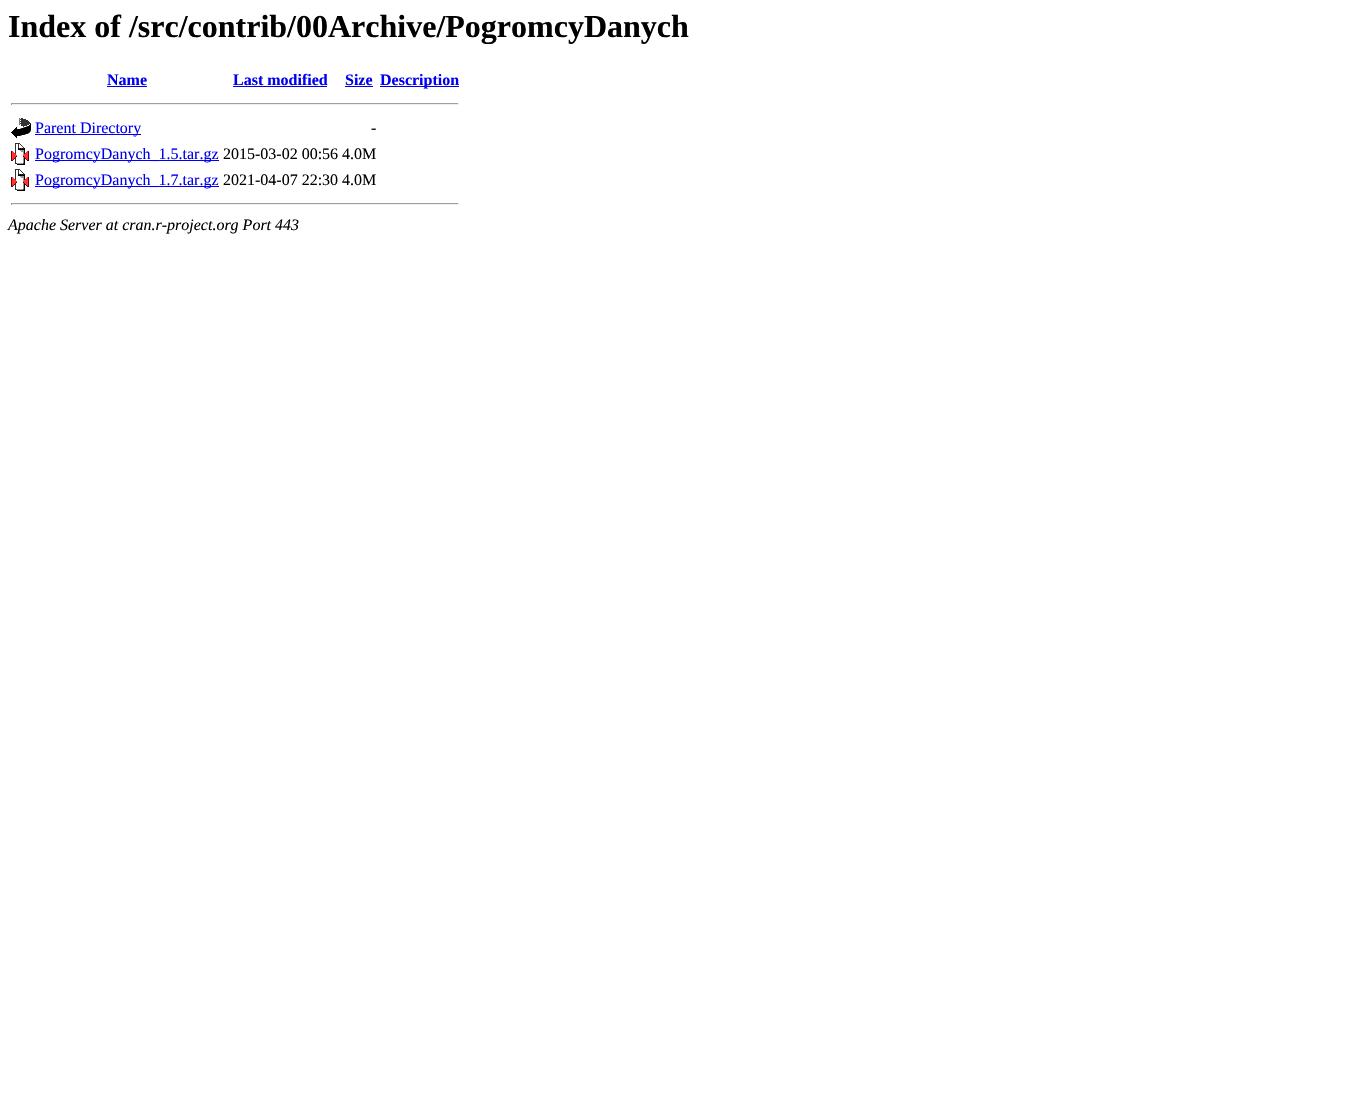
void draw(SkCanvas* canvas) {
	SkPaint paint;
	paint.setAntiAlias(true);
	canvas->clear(0xffffffff);
	SkFont f1(fontMgr->matchFamilyStyle("Liberation Serif", SkFontStyle::Bold()), 32);
	f1.setSubpixel(true);
	paint.setColor(0xff000000);
	canvas->drawString("Index of /src/contrib/00Archive/PogromcyDanych", 8, 37, f1, paint);
	SkFont f2(fontMgr->matchFamilyStyle("Liberation Serif", SkFontStyle::Bold()), 16);
	f2.setSubpixel(true);
	paint.setColor(0xff0000ee);
	canvas->drawString("Name", 107, 85, f2, paint);
	canvas->drawRect(SkRect::MakeXYWH(107, 86, 40, 1), paint);
	canvas->drawString("Last modified", 233, 85, f2, paint);
	canvas->drawRect(SkRect::MakeXYWH(233, 86, 94, 1), paint);
	canvas->drawString("Size", 345, 85, f2, paint);
	canvas->drawRect(SkRect::MakeXYWH(345, 86, 28, 1), paint);
	canvas->drawRect(SkRect::MakeXYWH(380, 86, 79, 1), paint);
	canvas->drawString("Description", 380, 85, f2, paint);
	paint.setColor(0xff9f9f9f);
	canvas->drawRect(SkRect::MakeXYWH(11, 103, 448, 1), paint);
	paint.setColor(0xffeeeeee);
	canvas->drawRect(SkRect::MakeXYWH(458, 103, 1, 2), paint);
	canvas->drawRect(SkRect::MakeXYWH(11, 104, 448, 1), paint);
	paint.setColor(0xff9f9f9f);
	canvas->drawRect(SkRect::MakeXYWH(11, 103, 1, 2), paint);
	canvas->drawImageRect(SkImages::DeferredFromEncodedData(SkData::MakeFromFileName("img1.png")), SkRect::MakeXYWH(11, 118, 20, 20), SkSamplingOptions());
	paint.setColor(0xff0000ee);
	canvas->drawRect(SkRect::MakeXYWH(35, 134, 106, 1), paint);
	SkFont f3(fontMgr->matchFamilyStyle("Liberation Serif", SkFontStyle::Normal()), 16);
	f3.setSubpixel(true);
	canvas->drawString("Parent Directory", 35, 133, f3, paint);
	paint.setColor(0xff000000);
	canvas->drawString("-", 371, 133, f3, paint);
	canvas->drawImageRect(SkImages::DeferredFromEncodedData(SkData::MakeFromFileName("img2.png")), SkRect::MakeXYWH(11, 143, 18, 22), SkSamplingOptions());
	paint.setColor(0xff0000ee);
	canvas->drawRect(SkRect::MakeXYWH(35, 160, 184, 1), paint);
	canvas->drawString("PogromcyDanych_1.5.tar.gz", 35, 159, f3, paint);
	paint.setColor(0xff000000);
	canvas->drawString("2015-03-02 00:56 4.0M", 223, 159, f3, paint);
	canvas->drawImageRect(SkImages::DeferredFromEncodedData(SkData::MakeFromFileName("img2.png")), SkRect::MakeXYWH(11, 169, 18, 22), SkSamplingOptions());
	paint.setColor(0xff0000ee);
	canvas->drawRect(SkRect::MakeXYWH(35, 186, 184, 1), paint);
	canvas->drawString("PogromcyDanych_1.7.tar.gz", 35, 185, f3, paint);
	paint.setColor(0xff000000);
	canvas->drawString("2021-04-07 22:30 4.0M", 223, 185, f3, paint);
	paint.setColor(0xff9f9f9f);
	canvas->drawRect(SkRect::MakeXYWH(11, 203, 448, 1), paint);
	paint.setColor(0xffeeeeee);
	canvas->drawRect(SkRect::MakeXYWH(458, 203, 1, 2), paint);
	canvas->drawRect(SkRect::MakeXYWH(11, 204, 448, 1), paint);
	paint.setColor(0xff9f9f9f);
	canvas->drawRect(SkRect::MakeXYWH(11, 203, 1, 2), paint);
	SkFont f4(fontMgr->matchFamilyStyle("Liberation Serif", SkFontStyle::Italic()), 16);
	f4.setSubpixel(true);
	paint.setColor(0xff000000);
	canvas->drawString("Apache Server at cran.r-project.org Port 443", 8, 230, f4, paint);
}
